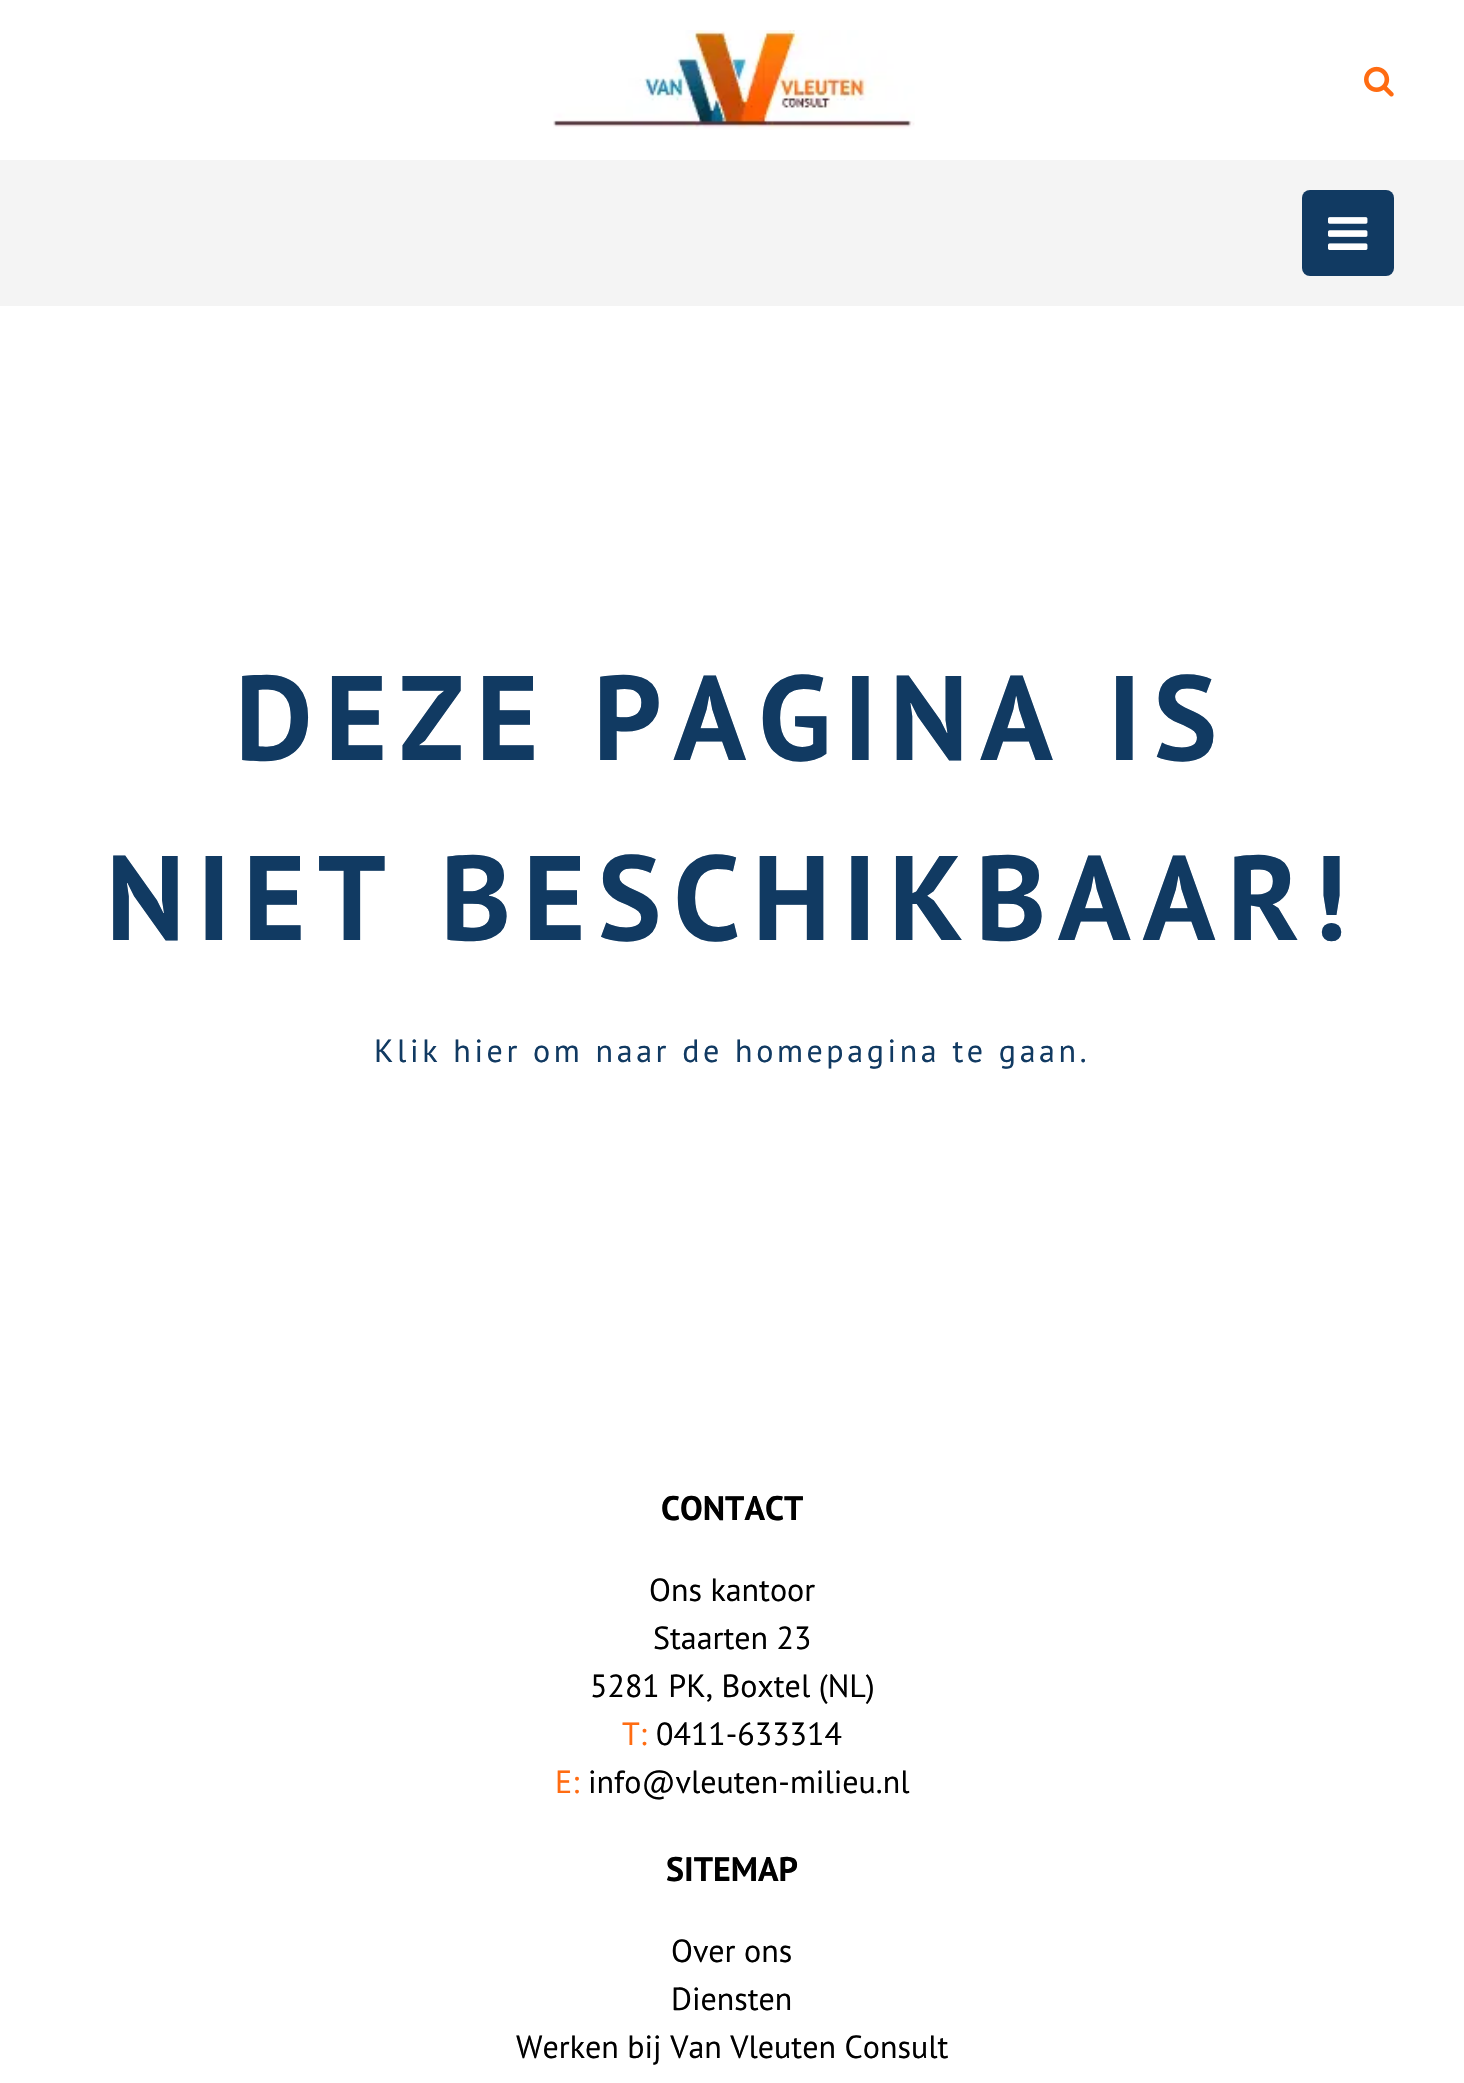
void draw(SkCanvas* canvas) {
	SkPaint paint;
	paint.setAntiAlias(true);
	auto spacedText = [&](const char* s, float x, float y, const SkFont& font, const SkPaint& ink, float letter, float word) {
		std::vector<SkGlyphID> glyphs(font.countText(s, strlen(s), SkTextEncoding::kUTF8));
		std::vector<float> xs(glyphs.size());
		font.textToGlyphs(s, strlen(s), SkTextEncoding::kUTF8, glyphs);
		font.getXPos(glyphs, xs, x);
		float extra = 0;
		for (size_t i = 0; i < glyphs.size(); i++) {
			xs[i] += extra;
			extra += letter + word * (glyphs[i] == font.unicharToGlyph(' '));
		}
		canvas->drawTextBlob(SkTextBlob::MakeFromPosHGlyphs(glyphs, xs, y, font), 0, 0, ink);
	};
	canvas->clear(0xffffffff);
	canvas->drawImageRect(SkImages::DeferredFromEncodedData(SkData::MakeFromFileName("img1.png")), SkRect::MakeXYWH(553, 30, 362, 100), SkSamplingOptions());
	canvas->drawImageRect(SkImages::DeferredFromEncodedData(SkData::MakeFromFileName("img2.png")), SkRect::MakeXYWH(1364, 66, 30, 31), SkSamplingOptions());
	paint.setColor(0xfff4f4f4);
	canvas->drawRect(SkRect::MakeXYWH(0, 160, 1464, 146), paint);
	paint.setColor(0xff113a62);
	canvas->drawRoundRect(SkRect::MakeXYWH(1302, 190, 92, 86), 8, 8, paint);
	canvas->drawImageRect(SkImages::DeferredFromEncodedData(SkData::MakeFromFileName("img3.png")), SkRect::MakeXYWH(1328, 217, 40, 33), SkSamplingOptions());
	SkFont f1(fontMgr->matchFamilyStyle("PT Sans", SkFontStyle::Bold()), 120);
	f1.setSubpixel(true);
	spacedText("DEZE PAGINA IS", 235, 760, f1, paint, 12, 0);
	spacedText("NIET BESCHIKBAAR!", 106, 940, f1, paint, 12, 0);
	SkFont f2(fontMgr->matchFamilyStyle("PT Sans", SkFontStyle::Normal()), 32);
	f2.setSubpixel(true);
	spacedText("Klik hier om naar de homepagina te gaan.", 374, 1062, f2, paint, 3.6, 0);
	SkFont f3(fontMgr->matchFamilyStyle("PT Sans", SkFontStyle::Bold()), 34);
	f3.setSubpixel(true);
	paint.setColor(0xff000000);
	canvas->drawString("CONTACT", 661, 1520, f3, paint);
	canvas->drawString("Ons kantoor", 649, 1601, f2, paint);
	canvas->drawString("Staarten 23", 653, 1649, f2, paint);
	canvas->drawString("5281 PK, Boxtel (NL)", 590, 1697, f2, paint);
	paint.setColor(0xffff6c12);
	canvas->drawString("T:", 622, 1745, f2, paint);
	paint.setColor(0xff000000);
	canvas->drawString("0411-633314", 656, 1745, f2, paint);
	paint.setColor(0xffff6c12);
	canvas->drawString("E:", 555, 1793, f2, paint);
	paint.setColor(0xff000000);
	canvas->drawString("info@vleuten-milieu.nl", 588, 1793, f2, paint);
	canvas->drawString("SITEMAP", 666, 1881, f3, paint);
	canvas->drawString("Over ons", 671, 1962, f2, paint);
	canvas->drawString("Diensten", 671, 2010, f2, paint);
	canvas->drawString("Werken bij Van Vleuten Consult", 516, 2058, f2, paint);
}
